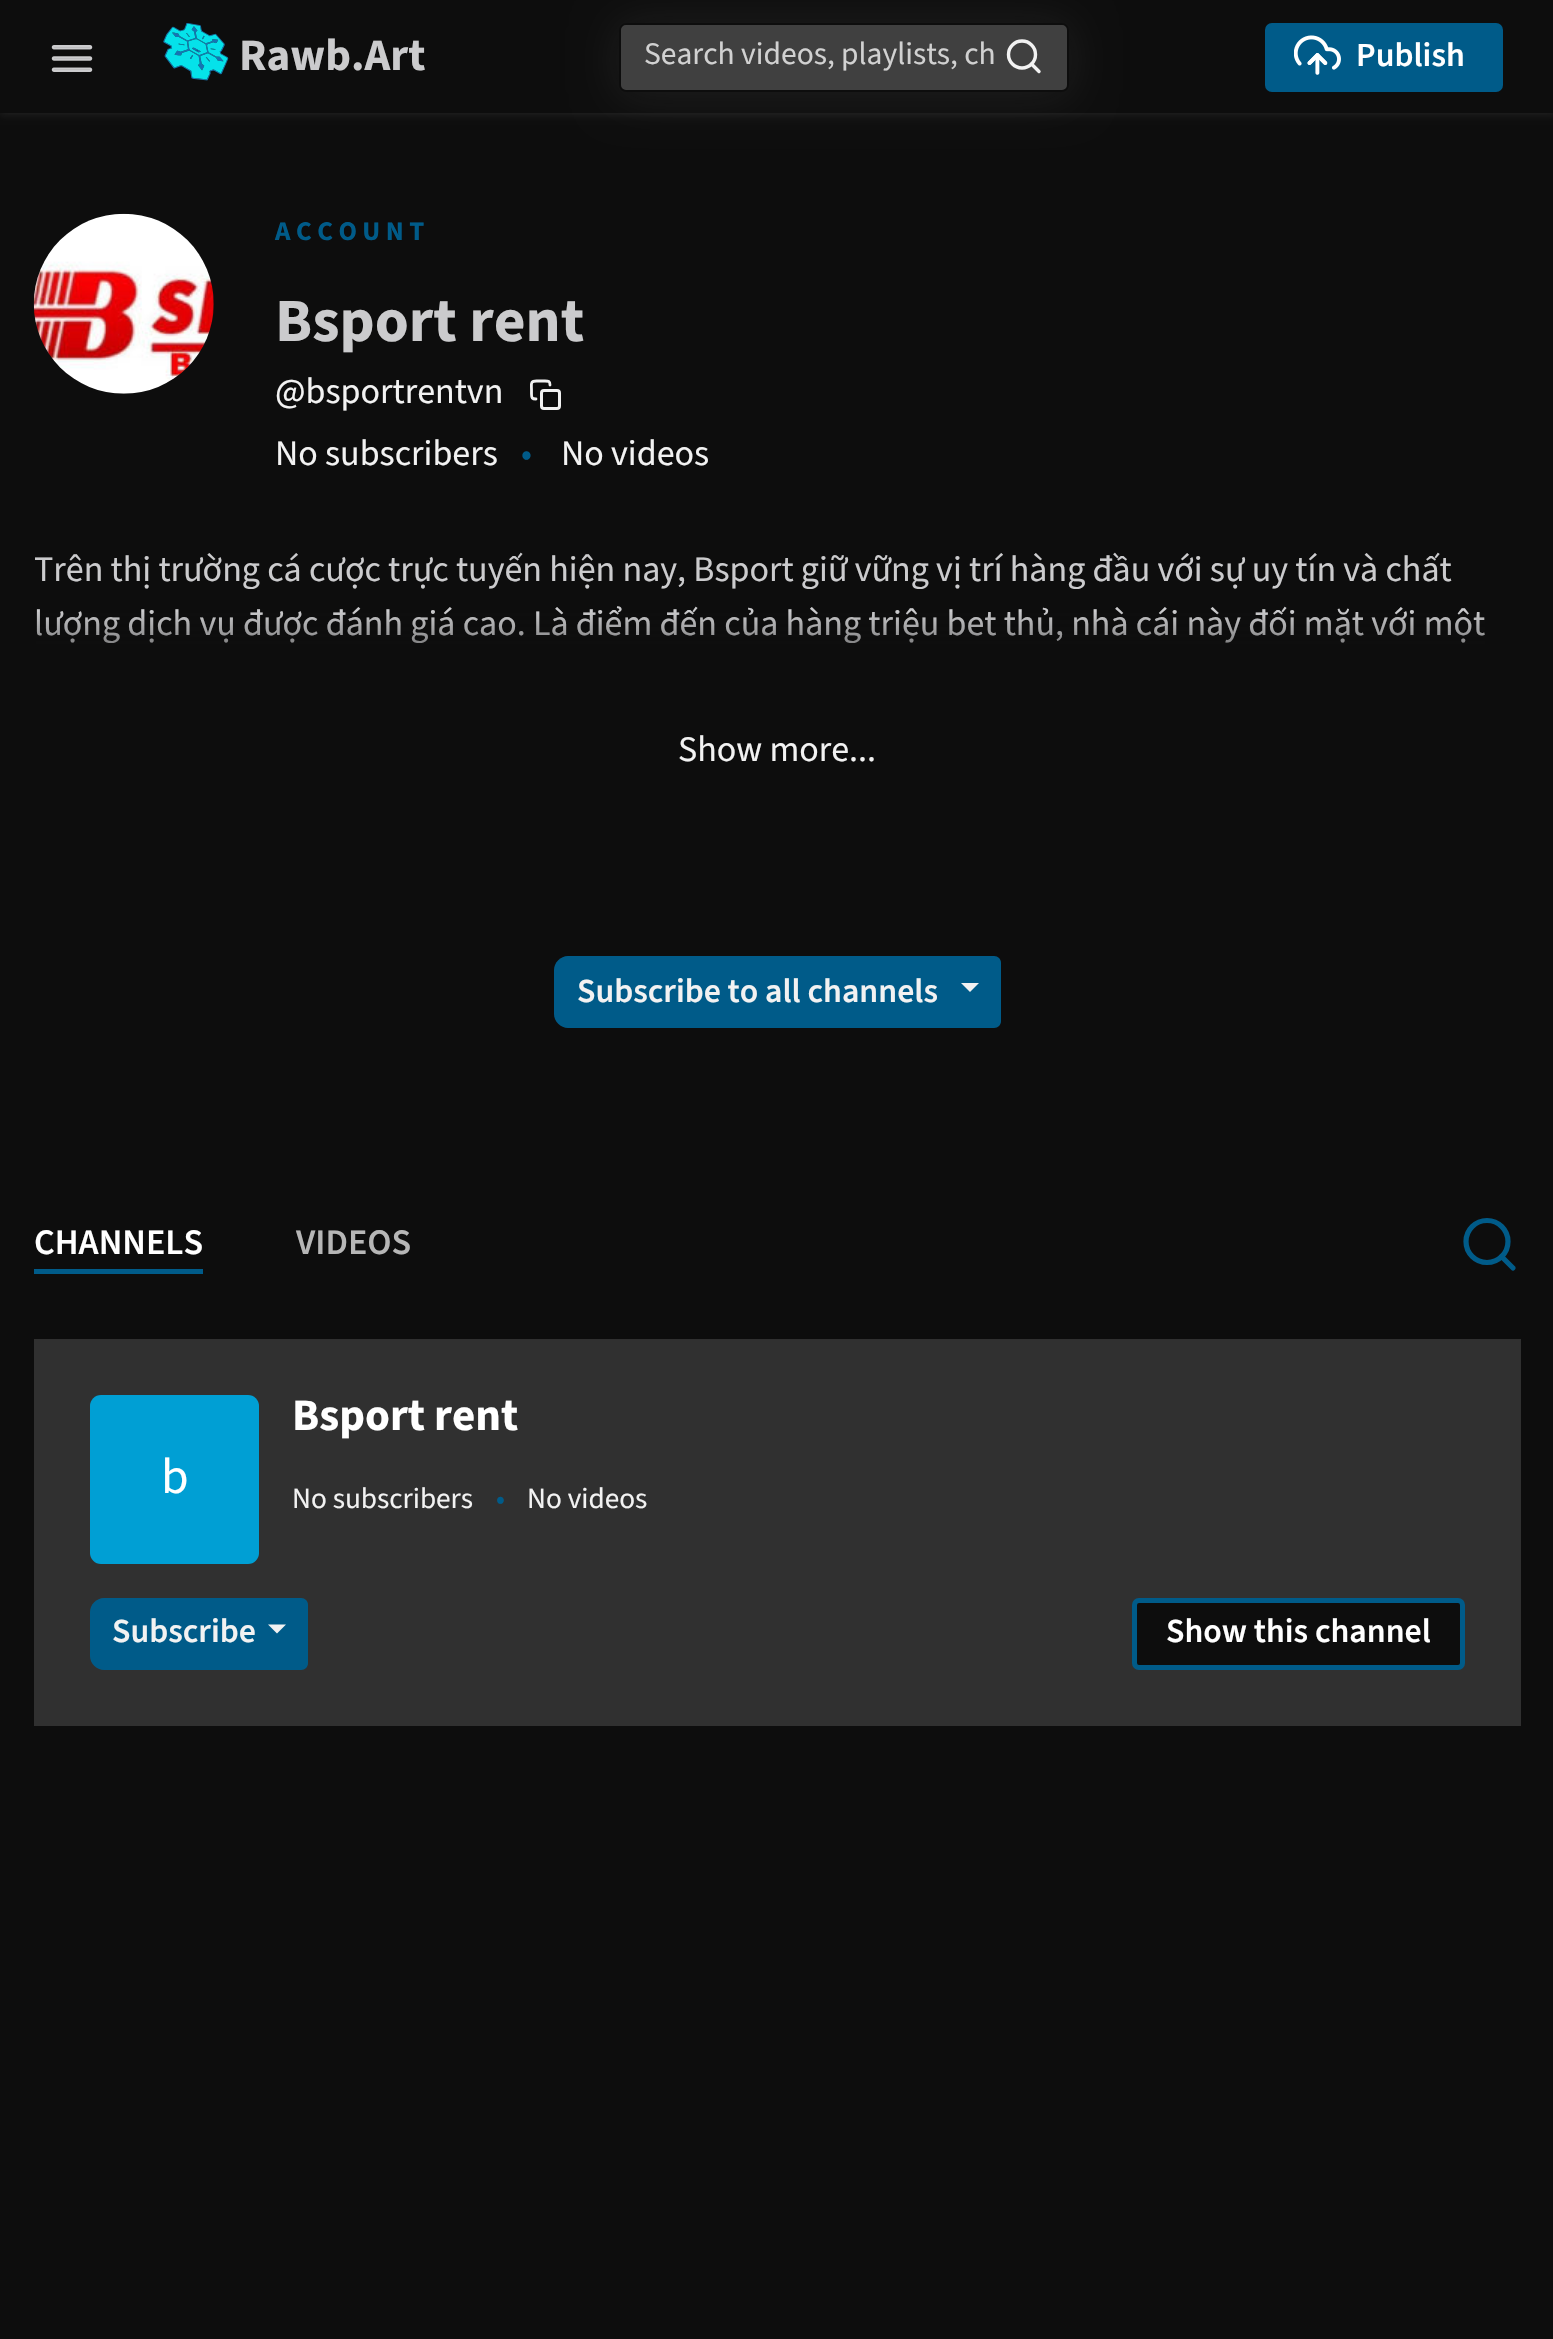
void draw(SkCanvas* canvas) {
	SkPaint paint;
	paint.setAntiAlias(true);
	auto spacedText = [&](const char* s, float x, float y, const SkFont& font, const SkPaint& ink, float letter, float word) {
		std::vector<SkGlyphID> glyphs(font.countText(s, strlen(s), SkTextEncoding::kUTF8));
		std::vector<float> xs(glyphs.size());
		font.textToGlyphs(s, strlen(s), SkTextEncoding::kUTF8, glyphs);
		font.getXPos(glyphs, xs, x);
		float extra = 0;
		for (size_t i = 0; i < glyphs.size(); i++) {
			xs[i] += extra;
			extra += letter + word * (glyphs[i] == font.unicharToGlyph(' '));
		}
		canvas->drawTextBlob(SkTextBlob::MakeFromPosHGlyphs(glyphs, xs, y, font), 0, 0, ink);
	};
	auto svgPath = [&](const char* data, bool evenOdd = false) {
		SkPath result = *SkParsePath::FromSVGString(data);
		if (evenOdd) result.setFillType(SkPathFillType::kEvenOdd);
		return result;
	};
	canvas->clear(0xff0d0d0d);
	paint.setColor(0x1ac8c8c8);
	paint.setMaskFilter(SkMaskFilter::MakeBlur(kNormal_SkBlurStyle, 3.5));
	canvas->drawRect(SkRect::MakeXYWH(0, 2, 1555, 113), paint);
	paint.setMaskFilter(nullptr);
	paint.setColor(0xff0d0d0d);
	canvas->drawRect(SkRect::MakeXYWH(0, 0, 1553, 113), paint);
	canvas->drawImageRect(SkImages::DeferredFromEncodedData(SkData::MakeFromFileName("img1.png")), SkRect::MakeXYWH(51, 45, 42, 27), SkSamplingOptions());
	canvas->drawImageRect(SkImages::DeferredFromEncodedData(SkData::MakeFromFileName("img2.png")), SkRect::MakeXYWH(163, 23, 66, 58), SkSamplingOptions());
	SkFont f1(fontMgr->matchFamilyStyle("Source Sans 3", SkFontStyle::Bold()), 45);
	f1.setSubpixel(true);
	paint.setColor(0xffcbcbcd);
	canvas->drawString("Rawb.Art", 239, 70, f1, paint);
	paint.setColor(0x1ac8c8c8);
	paint.setMaskFilter(SkMaskFilter::MakeBlur(kNormal_SkBlurStyle, 22.5));
	canvas->drawRoundRect(SkRect::MakeXYWH(619, 25, 450, 70), 7, 7, paint);
	paint.setMaskFilter(nullptr);
	paint.setColor(0xff404040);
	canvas->drawRoundRect(SkRect::MakeXYWH(620, 24, 448, 67), 6, 6, paint);
	paint.setStroke(true);
	paint.setStrokeWidth(2);
	paint.setColor(0xff0d0d0d);
	canvas->drawRoundRect(SkRect::MakeXYWH(620, 24, 448, 67), 6, 6, paint);
	SkFont f2(fontMgr->matchFamilyStyle("Source Sans 3", SkFontStyle::Normal()), 31.5);
	f2.setSubpixel(true);
	paint.setStroke(false);
	paint.setColor(0xffd1d1d1);
	canvas->drawString("Search videos, playlists, ch", 644, 64, f2, paint);
	paint.setStroke(true);
	paint.setStrokeWidth(3.4);
	paint.setColor(0xfff2f2f2);
	canvas->drawCircle(1022, 54.5, 13.5, paint);
	paint.setStrokeCap(SkPaint::kRound_Cap);
	paint.setStrokeJoin(SkPaint::kRound_Join);
	canvas->drawPath(svgPath("M1039 71.5L1031.5 64"), paint);
	paint.setStroke(false);
	paint.setColor(0xff005b89);
	canvas->drawRoundRect(SkRect::MakeXYWH(1265, 23, 238, 69), 7, 7, paint);
	canvas->drawImageRect(SkImages::DeferredFromEncodedData(SkData::MakeFromFileName("img3.png")), SkRect::MakeXYWH(1294, 35, 47, 40), SkSamplingOptions());
	SkFont f3(fontMgr->matchFamilyStyle("Source Sans 3", SkFontStyle(600, SkFontStyle::kNormal_Width, SkFontStyle::kUpright_Slant)), 33.75);
	f3.setSubpixel(true);
	paint.setColor(0xffffffff);
	canvas->drawString("Publish", 1356, 66, f3, paint);
	canvas->drawImageRect(SkImages::DeferredFromEncodedData(SkData::MakeFromFileName("img4.png")), SkRect::MakeXYWH(33, 213, 181, 181), SkSamplingOptions());
	SkFont f4(fontMgr->matchFamilyStyle("Source Sans 3", SkFontStyle::Bold()), 27);
	f4.setSubpixel(true);
	paint.setColor(0xff005b89);
	spacedText("ACCOUNT", 275, 240, f4, paint, 5.5, 0);
	SkFont f5(fontMgr->matchFamilyStyle("Source Sans 3", SkFontStyle::Bold()), 61.5);
	f5.setSubpixel(true);
	paint.setColor(0xffcbcbcd);
	canvas->drawString("Bsport rent", 275, 341, f5, paint);
	SkFont f6(fontMgr->matchFamilyStyle("Source Sans 3", SkFontStyle::Normal()), 36);
	f6.setSubpixel(true);
	paint.setColor(0xfff2f2f2);
	canvas->drawString("@bsportrentvn", 275, 403, f6, paint);
	paint.setStroke(true);
	paint.setStrokeWidth(3);
	paint.setStrokeCap(SkPaint::kButt_Cap);
	paint.setStrokeJoin(SkPaint::kMiter_Join);
	canvas->drawRoundRect(SkRect::MakeXYWH(541.5, 390.5, 18, 18), 2.5, 2.5, paint);
	paint.setStrokeWidth(2.8);
	paint.setStrokeCap(SkPaint::kRound_Cap);
	paint.setStrokeJoin(SkPaint::kRound_Join);
	canvas->drawPath(svgPath("M536 399C532 399 531.5 398 531.5 394V390C531.5 384 530 381 536.5 381H545C548.5 381 550 381 550 385"), paint);
	paint.setStroke(false);
	canvas->drawString("No subscribers", 275, 465, f6, paint);
	paint.setColor(0xff005b89);
	canvas->drawString("•", 521, 465, f6, paint);
	paint.setColor(0xfff2f2f2);
	canvas->drawString("No videos", 561, 465, f6, paint);
	paint.setColor(0xffcbcbcd);
	canvas->drawString("Trên thị trường cá cược trực tuyến hiện nay, Bsport giữ vững vị trí hàng đầu với sự uy tín và chất", 34, 581, f6, paint);
	canvas->drawString("lượng dịch vụ được đánh giá cao. Là điểm đến của hàng triệu bet thủ, nhà cái này đối mặt với một", 34, 635, f6, paint);
	{
		const SkColor colors[] = {0x000d0d0d, 0xff0d0d0d};
		const float stops[] = {0.43, 1};
		const SkPoint ends[] = {{777, 542}, {777, 700}};
		paint.setShader(SkGradientShader::MakeLinear(ends, colors, stops, 2, SkTileMode::kClamp));
		paint.setAlpha(255);
	}
	canvas->drawRect(SkRect::MakeXYWH(36, 612, 1449, 32), paint);
	paint.setShader(nullptr);
	paint.setColor(0xfff2f2f2);
	canvas->drawString("Show more...", 678, 761, f6, paint);
	paint.setColor(0xff005b89);
	canvas->drawPath(svgPath("M568 956H994C998 956 1001 959 1001 963V1021C1001 1025 998 1028 994 1028H568C560.5 1028 554 1021.5 554 1014V970C554 962.5 560.5 956 568 956Z"), paint);
	paint.setColor(0xfff2f2f2);
	canvas->drawString("Subscribe to all channels", 577, 1002, f3, paint);
	canvas->drawPath(svgPath("M961 983H979L970 992Z"), paint);
	paint.setColor(0xff005b89);
	canvas->drawRect(SkRect::MakeXYWH(34, 1269, 169, 5), paint);
	SkFont f7(fontMgr->matchFamilyStyle("Source Sans 3", SkFontStyle(600, SkFontStyle::kNormal_Width, SkFontStyle::kUpright_Slant)), 36);
	f7.setSubpixel(true);
	paint.setColor(0xffffffff);
	canvas->drawString("CHANNELS", 34, 1254, f7, paint);
	paint.setColor(0xffb6b6b6);
	canvas->drawString("VIDEOS", 296, 1254, f7, paint);
	paint.setStroke(true);
	paint.setStrokeWidth(5.2);
	paint.setStrokeCap(SkPaint::kButt_Cap);
	paint.setStrokeJoin(SkPaint::kMiter_Join);
	paint.setColor(0xff005b89);
	canvas->drawCircle(1487, 1241.5, 21, paint);
	paint.setStrokeCap(SkPaint::kRound_Cap);
	paint.setStrokeJoin(SkPaint::kRound_Join);
	canvas->drawPath(svgPath("M1513 1268L1501.5 1256.5"), paint);
	paint.setStroke(false);
	paint.setColor(0xff303030);
	canvas->drawRect(SkRect::MakeXYWH(34, 1339, 1487, 387), paint);
	paint.setColor(0xffffffff);
	canvas->drawString("Bsport rent", 292, 1430, f1, paint);
	paint.setColor(0xff009fd4);
	canvas->drawRoundRect(SkRect::MakeXYWH(90, 1395, 169, 169), 11, 11, paint);
	SkFont f8(fontMgr->matchFamilyStyle("Source Sans 3", SkFontStyle::Normal()), 50);
	f8.setSubpixel(true);
	paint.setColor(0xffffffff);
	canvas->drawString("b", 161, 1493, f8, paint);
	SkFont f9(fontMgr->matchFamilyStyle("Source Sans 3", SkFontStyle::Normal()), 29.25);
	f9.setSubpixel(true);
	paint.setColor(0xfff2f2f2);
	canvas->drawString("No subscribers", 292, 1508, f9, paint);
	paint.setColor(0xff005b89);
	canvas->drawString("•", 496, 1508, f9, paint);
	paint.setColor(0xfff2f2f2);
	canvas->drawString("No videos", 527, 1508, f9, paint);
	paint.setColor(0xff005b89);
	canvas->drawPath(svgPath("M104 1598H301C305 1598 308 1601 308 1605V1663C308 1667 305 1670 301 1670H104C96.5 1670 90 1663.5 90 1656V1612C90 1604.5 96.5 1598 104 1598Z"), paint);
	paint.setColor(0xfff2f2f2);
	canvas->drawString("Subscribe", 112, 1642, f3, paint);
	canvas->drawPath(svgPath("M268 1624.5H286L277 1633.5Z"), paint);
	paint.setColor(0xff0d0d0d);
	canvas->drawRoundRect(SkRect::MakeXYWH(1134.5, 1600.5, 328, 67), 4.5, 4.5, paint);
	paint.setStroke(true);
	paint.setStrokeWidth(5);
	paint.setStrokeCap(SkPaint::kButt_Cap);
	paint.setStrokeJoin(SkPaint::kMiter_Join);
	paint.setColor(0xff005b89);
	canvas->drawRoundRect(SkRect::MakeXYWH(1134.5, 1600.5, 328, 67), 4.5, 4.5, paint);
	paint.setStroke(false);
	paint.setColor(0xffffffff);
	canvas->drawString("Show this channel", 1166, 1642, f3, paint);
}
